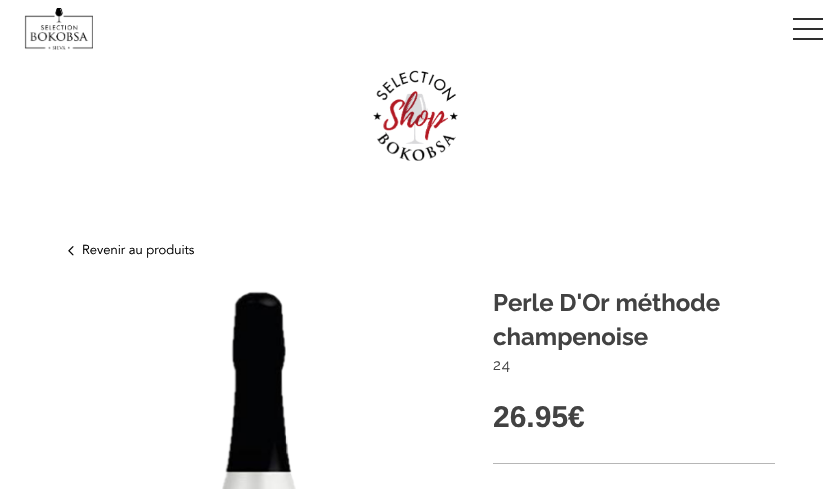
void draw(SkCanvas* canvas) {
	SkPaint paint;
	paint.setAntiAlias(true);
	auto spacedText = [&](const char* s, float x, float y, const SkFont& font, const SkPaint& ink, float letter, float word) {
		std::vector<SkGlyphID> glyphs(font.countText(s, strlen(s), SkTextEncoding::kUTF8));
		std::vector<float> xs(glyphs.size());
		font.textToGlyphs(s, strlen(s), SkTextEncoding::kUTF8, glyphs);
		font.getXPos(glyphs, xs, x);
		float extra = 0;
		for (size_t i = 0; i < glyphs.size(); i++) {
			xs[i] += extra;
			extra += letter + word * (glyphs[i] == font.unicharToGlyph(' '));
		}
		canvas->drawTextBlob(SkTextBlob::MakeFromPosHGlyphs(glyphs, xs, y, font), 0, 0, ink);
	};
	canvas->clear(0xffffffff);
	canvas->drawImageRect(SkImages::DeferredFromEncodedData(SkData::MakeFromFileName("img1.png")), SkRect::MakeXYWH(24, 8, 69, 42), SkSamplingOptions());
	paint.setColor(0xff2e2e2e);
	canvas->drawRect(SkRect::MakeXYWH(793, 28, 30, 2), paint);
	canvas->drawRect(SkRect::MakeXYWH(793, 18, 30, 2), paint);
	canvas->drawRect(SkRect::MakeXYWH(793, 38, 30, 2), paint);
	canvas->drawImageRect(SkImages::DeferredFromEncodedData(SkData::MakeFromFileName("img2.png")), SkRect::MakeXYWH(373, 70, 85, 91), SkSamplingOptions());
	canvas->drawImageRect(SkImages::DeferredFromEncodedData(SkData::MakeFromFileName("img3.png")), SkRect::MakeXYWH(68, 246, 6, 10), SkSamplingOptions());
	SkFont f1(fontMgr->matchFamilyStyle("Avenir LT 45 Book", SkFontStyle::Normal()), 13);
	f1.setSubpixel(true);
	paint.setColor(0xff000000);
	canvas->drawString("Revenir au produits", 82, 254, f1, paint);
	canvas->drawImageRect(SkImages::DeferredFromEncodedData(SkData::MakeFromFileName("img4.png")), SkRect::MakeXYWH(222, 291, 74, 198), SkSamplingOptions());
	SkFont f2(fontMgr->matchFamilyStyle("Raleway", SkFontStyle::Bold()), 24);
	f2.setSubpixel(true);
	paint.setColor(0xff424242);
	canvas->drawString("Perle D'Or méthode", 493, 311, f2, paint);
	canvas->drawString("champenoise", 493, 345, f2, paint);
	SkFont f3(fontMgr->matchFamilyStyle("Raleway", SkFontStyle::Normal()), 15);
	f3.setSubpixel(true);
	spacedText("24", 493, 370, f3, paint, 1, 0);
	SkFont f4(fontMgr->matchFamilyStyle("Liberation Sans", SkFontStyle::Bold()), 30);
	f4.setSubpixel(true);
	canvas->drawString("26.95€", 493, 427, f4, paint);
	paint.setColor(0xffb6b6b6);
	canvas->drawRect(SkRect::MakeXYWH(493, 463, 282, 1), paint);
}
